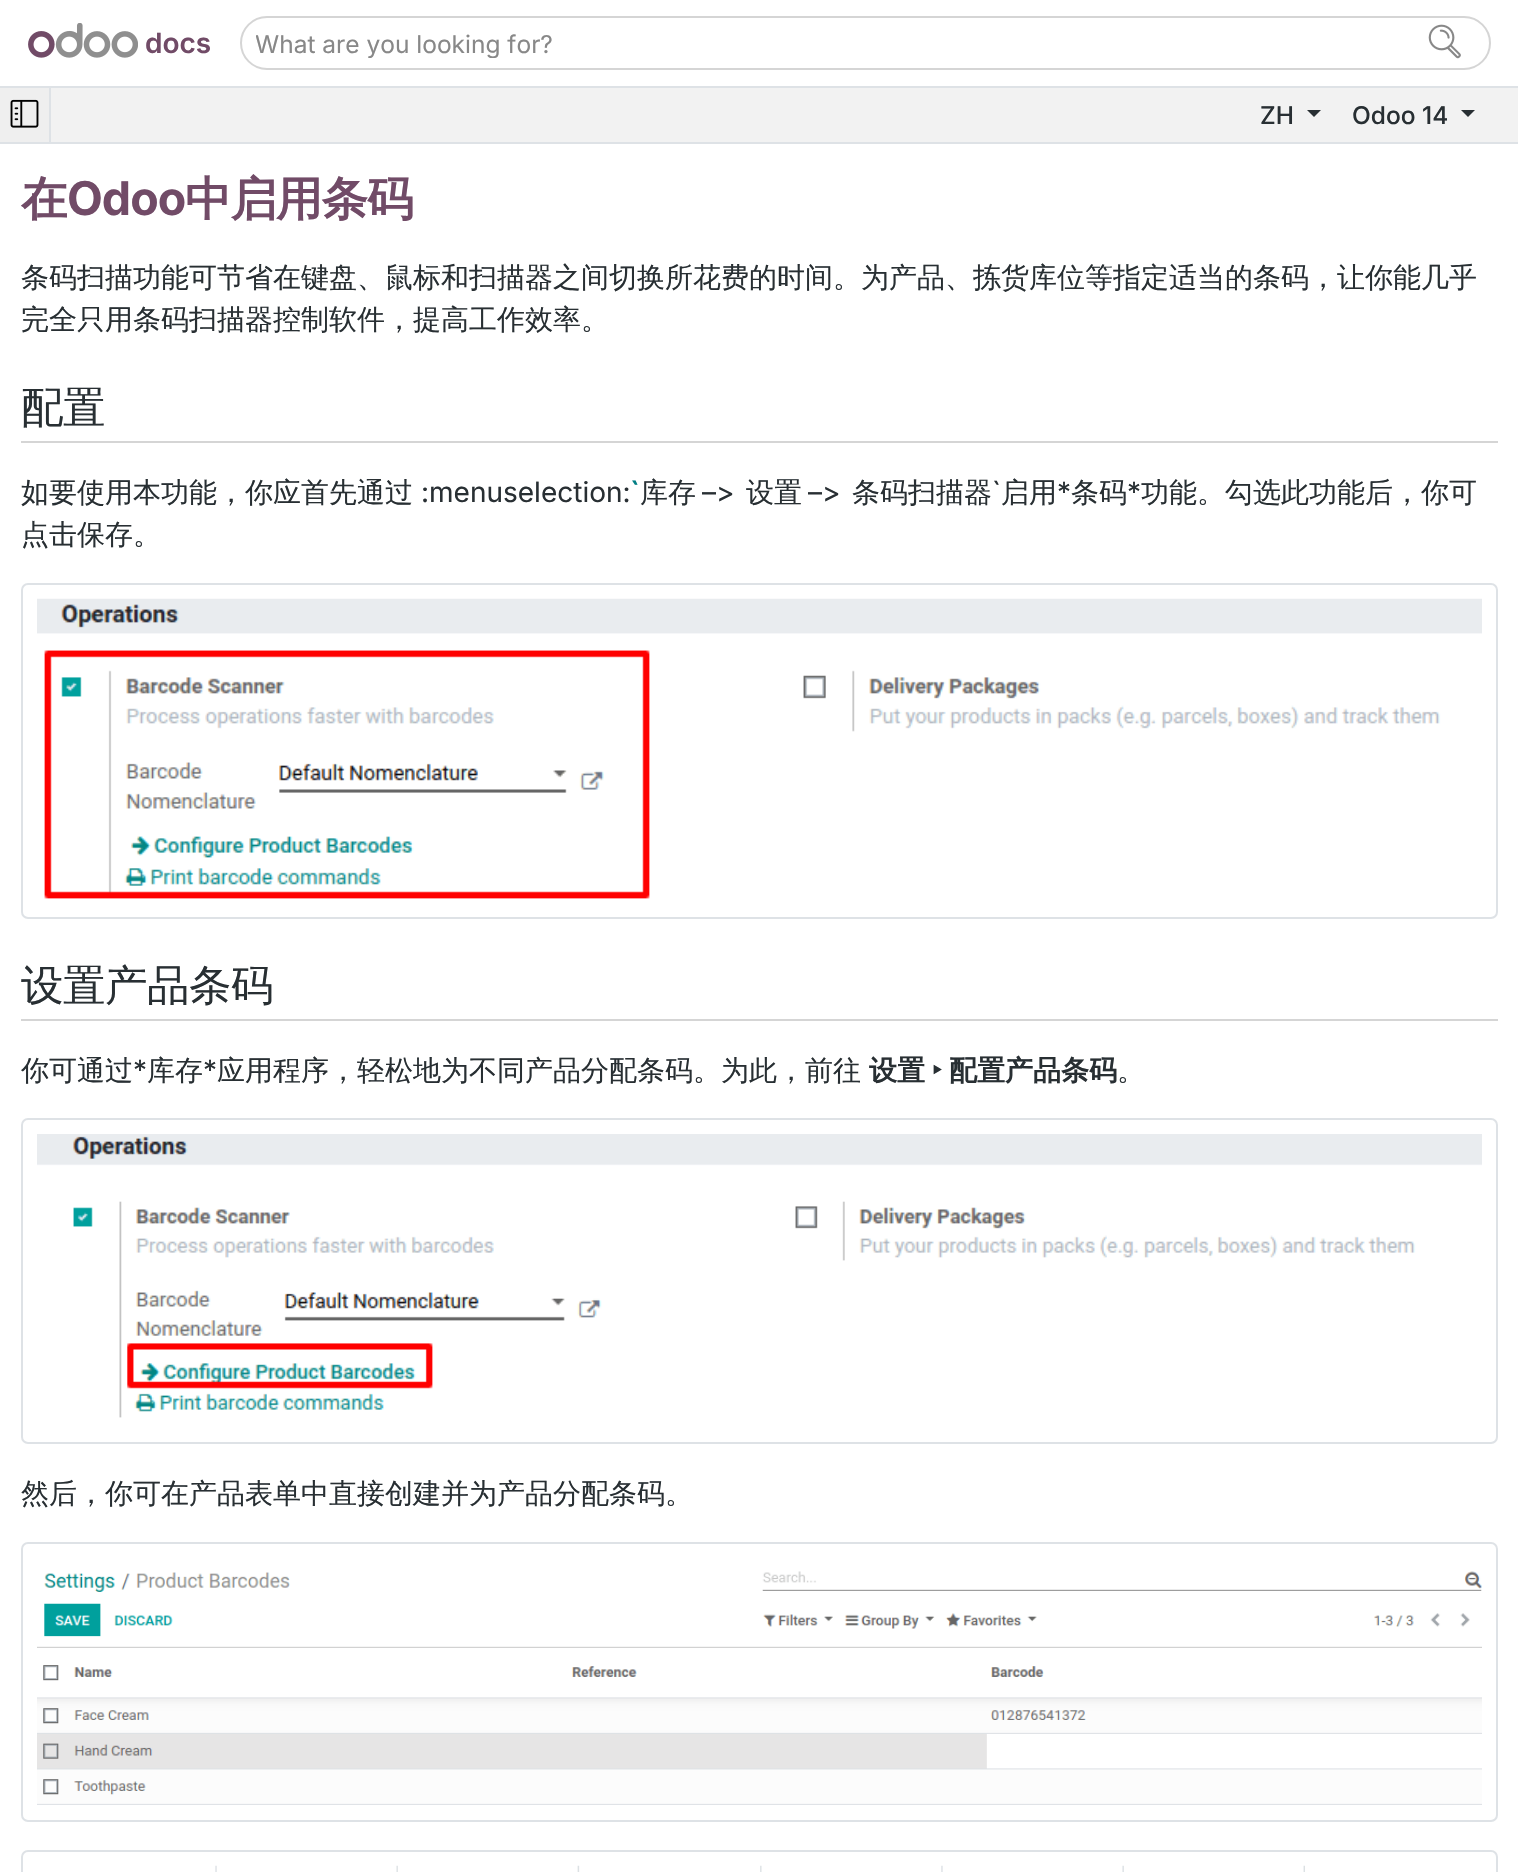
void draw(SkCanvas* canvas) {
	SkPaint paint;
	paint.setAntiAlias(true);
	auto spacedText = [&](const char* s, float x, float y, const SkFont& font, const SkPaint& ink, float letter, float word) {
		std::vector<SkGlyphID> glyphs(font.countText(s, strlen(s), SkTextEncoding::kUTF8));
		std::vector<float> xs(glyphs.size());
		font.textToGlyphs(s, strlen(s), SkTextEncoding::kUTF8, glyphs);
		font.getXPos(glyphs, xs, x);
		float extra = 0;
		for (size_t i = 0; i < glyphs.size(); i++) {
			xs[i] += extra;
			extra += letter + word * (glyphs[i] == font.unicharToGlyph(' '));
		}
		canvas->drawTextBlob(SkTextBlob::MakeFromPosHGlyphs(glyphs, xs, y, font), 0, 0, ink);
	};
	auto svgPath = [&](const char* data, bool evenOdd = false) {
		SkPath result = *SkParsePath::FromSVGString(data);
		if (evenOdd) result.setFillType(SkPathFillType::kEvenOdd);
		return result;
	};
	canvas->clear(0xffffffff);
	paint.setColor(0xffdee2e6);
	canvas->drawRect(SkRect::MakeXYWH(0, 86, 1518, 2), paint);
	canvas->drawImageRect(SkImages::DeferredFromEncodedData(SkData::MakeFromFileName("img1.png")), SkRect::MakeXYWH(28, 23, 110, 35), SkSamplingOptions());
	SkFont f1(fontMgr->matchFamilyStyle("Inter", SkFontStyle(600, SkFontStyle::kNormal_Width, SkFontStyle::kUpright_Slant)), 28);
	f1.setSubpixel(true);
	paint.setColor(0xff714b67);
	canvas->drawString("docs", 145, 53, f1, paint);
	paint.setStroke(true);
	paint.setStrokeWidth(2);
	paint.setColor(0xffd5d5d5);
	canvas->drawRoundRect(SkRect::MakeXYWH(241, 17, 1249, 52), 26, 26, paint);
	canvas->save();
	canvas->clipRect(SkRect::MakeXYWH(256, 28, 1219, 30));
	SkFont f2(fontMgr->matchFamilyStyle("Inter", SkFontStyle::Normal()), 24.5);
	f2.setSubpixel(true);
	paint.setStroke(false);
	paint.setColor(0xff888888);
	canvas->drawString("What are you looking for?", 255, 53, f2, paint);
	canvas->restore();
	canvas->drawImageRect(SkImages::DeferredFromEncodedData(SkData::MakeFromFileName("img2.png")), SkRect::MakeXYWH(1428, 24, 33, 35), SkSamplingOptions());
	paint.setColor(0xfff2f2f2);
	canvas->drawRect(SkRect::MakeXYWH(51, 88, 1467, 54), paint);
	paint.setColor(0xffdee2e6);
	canvas->drawRect(SkRect::MakeXYWH(0, 142, 1518, 2), paint);
	canvas->drawRect(SkRect::MakeXYWH(49, 88, 2, 54), paint);
	paint.setColor(0xffefefef);
	canvas->drawRect(SkRect::MakeXYWH(0, 88, 49, 54), paint);
	canvas->drawImageRect(SkImages::DeferredFromEncodedData(SkData::MakeFromFileName("img3.png")), SkRect::MakeXYWH(10, 99, 29, 29), SkSamplingOptions());
	SkFont f3(fontMgr->matchFamilyStyle("Inter", SkFontStyle(500, SkFontStyle::kNormal_Width, SkFontStyle::kUpright_Slant)), 24.5);
	f3.setSubpixel(true);
	paint.setColor(0xff282f33);
	canvas->drawString("ZH", 1260, 124, f3, paint);
	canvas->drawPath(svgPath("M1307 110H1321L1314 117Z"), paint);
	canvas->drawString("Odoo 14", 1352, 124, f3, paint);
	canvas->drawPath(svgPath("M1461 110H1475L1468 117Z"), paint);
	SkFont f4(fontMgr->matchFamilyStyle("WenQuanYi Zen Hei", SkFontStyle::Bold()), 46.5);
	f4.setSubpixel(true);
	paint.setColor(0xff714b67);
	spacedText("在", 21, 215, f4, paint, -1, 0);
	SkFont f5(fontMgr->matchFamilyStyle("Inter", SkFontStyle::Bold()), 46.5);
	f5.setSubpixel(true);
	spacedText("Odoo", 67, 215, f5, paint, -1, 0);
	spacedText("中启用条码", 185, 215, f4, paint, -1, 0);
	SkFont f6(fontMgr->matchFamilyStyle("WenQuanYi Zen Hei", SkFontStyle(500, SkFontStyle::kNormal_Width, SkFontStyle::kUpright_Slant)), 28);
	f6.setSubpixel(true);
	paint.setColor(0xff282f33);
	canvas->drawString("条码扫描功能可节省在键盘、鼠标和扫描器之间切换所花费的时间。为产品、拣货库位等指定适当的条码，让你能几乎", 21, 287, f6, paint);
	canvas->drawString("完全只用条码扫描器控制软件，提高工作效率。", 21, 329, f6, paint);
	paint.setColor(0xffd5d5d5);
	canvas->drawRect(SkRect::MakeXYWH(21, 441, 1477, 2), paint);
	SkFont f7(fontMgr->matchFamilyStyle("WenQuanYi Zen Hei", SkFontStyle(500, SkFontStyle::kNormal_Width, SkFontStyle::kUpright_Slant)), 42.5);
	f7.setSubpixel(true);
	paint.setColor(0xff282f33);
	spacedText("配置", 21, 422, f7, paint, -0.5, 0);
	canvas->drawString("如要使用本功能，你应首先通过", 21, 502, f6, paint);
	SkFont f8(fontMgr->matchFamilyStyle("Inter", SkFontStyle::Normal()), 28);
	f8.setSubpixel(true);
	canvas->drawString(":menuselection:", 421, 502, f8, paint);
	paint.setColor(0xff017e84);
	canvas->drawString("`", 630, 502, f1, paint);
	paint.setColor(0xff282f33);
	canvas->drawString("库存", 640, 502, f6, paint);
	canvas->drawString("–>", 702, 502, f8, paint);
	canvas->drawString("设置", 746, 502, f6, paint);
	canvas->drawString("–>", 808, 502, f8, paint);
	canvas->drawString("条码扫描器", 852, 502, f6, paint);
	canvas->drawString("`", 992, 502, f8, paint);
	canvas->drawString("启用", 1001, 502, f6, paint);
	canvas->drawString("*", 1057, 502, f8, paint);
	canvas->drawString("条码", 1071, 502, f6, paint);
	canvas->drawString("*", 1127, 502, f8, paint);
	canvas->drawString("功能。勾选此功能后，你可", 1141, 502, f6, paint);
	canvas->drawString("点击保存。", 21, 544, f6, paint);
	paint.setStroke(true);
	paint.setColor(0xffdee2e6);
	canvas->drawRoundRect(SkRect::MakeXYWH(22, 584, 1475, 334), 6, 6, paint);
	canvas->drawImageRect(SkImages::DeferredFromEncodedData(SkData::MakeFromFileName("img4.png")), SkRect::MakeXYWH(37, 598, 1445, 301), SkSamplingOptions());
	paint.setStroke(false);
	paint.setColor(0xffd5d5d5);
	canvas->drawRect(SkRect::MakeXYWH(21, 1019, 1477, 2), paint);
	paint.setColor(0xff282f33);
	spacedText("设置产品条码", 21, 1000, f7, paint, -0.5, 0);
	canvas->drawString("你可通过", 21, 1080, f6, paint);
	canvas->drawString("*", 133, 1080, f8, paint);
	canvas->drawString("库存", 147, 1080, f6, paint);
	canvas->drawString("*", 203, 1080, f8, paint);
	canvas->drawString("应用程序，轻松地为不同产品分配条码。为此，前往", 217, 1080, f6, paint);
	SkFont f9(fontMgr->matchFamilyStyle("WenQuanYi Zen Hei", SkFontStyle::Bold()), 28);
	f9.setSubpixel(true);
	canvas->drawString("设置", 869, 1080, f9, paint);
	SkFont f10(fontMgr->matchFamilyStyle("Noto Sans", SkFontStyle(600, SkFontStyle::kNormal_Width, SkFontStyle::kUpright_Slant)), 28);
	f10.setSubpixel(true);
	canvas->drawString("‣", 932, 1080, f10, paint);
	canvas->drawString("配置产品条码", 949, 1080, f9, paint);
	canvas->drawString("。", 1117, 1080, f6, paint);
	paint.setStroke(true);
	paint.setColor(0xffdee2e6);
	canvas->drawRoundRect(SkRect::MakeXYWH(22, 1119, 1475, 324), 6, 6, paint);
	canvas->drawImageRect(SkImages::DeferredFromEncodedData(SkData::MakeFromFileName("img5.png")), SkRect::MakeXYWH(37, 1134, 1445, 284), SkSamplingOptions());
	paint.setStroke(false);
	paint.setColor(0xff282f33);
	canvas->drawString("然后，你可在产品表单中直接创建并为产品分配条码。", 21, 1503, f6, paint);
	paint.setStroke(true);
	paint.setColor(0xffdee2e6);
	canvas->drawRoundRect(SkRect::MakeXYWH(22, 1543, 1475, 278), 6, 6, paint);
	canvas->drawImageRect(SkImages::DeferredFromEncodedData(SkData::MakeFromFileName("img6.png")), SkRect::MakeXYWH(37, 1571, 1445, 234), SkSamplingOptions());
	canvas->drawRoundRect(SkRect::MakeXYWH(22, 1851, 1475, 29), 6, 6, paint);
	canvas->drawImageRect(SkImages::DeferredFromEncodedData(SkData::MakeFromFileName("img7.png")), SkRect::MakeXYWH(215, 1865, 1090, 7), SkSamplingOptions());
}
